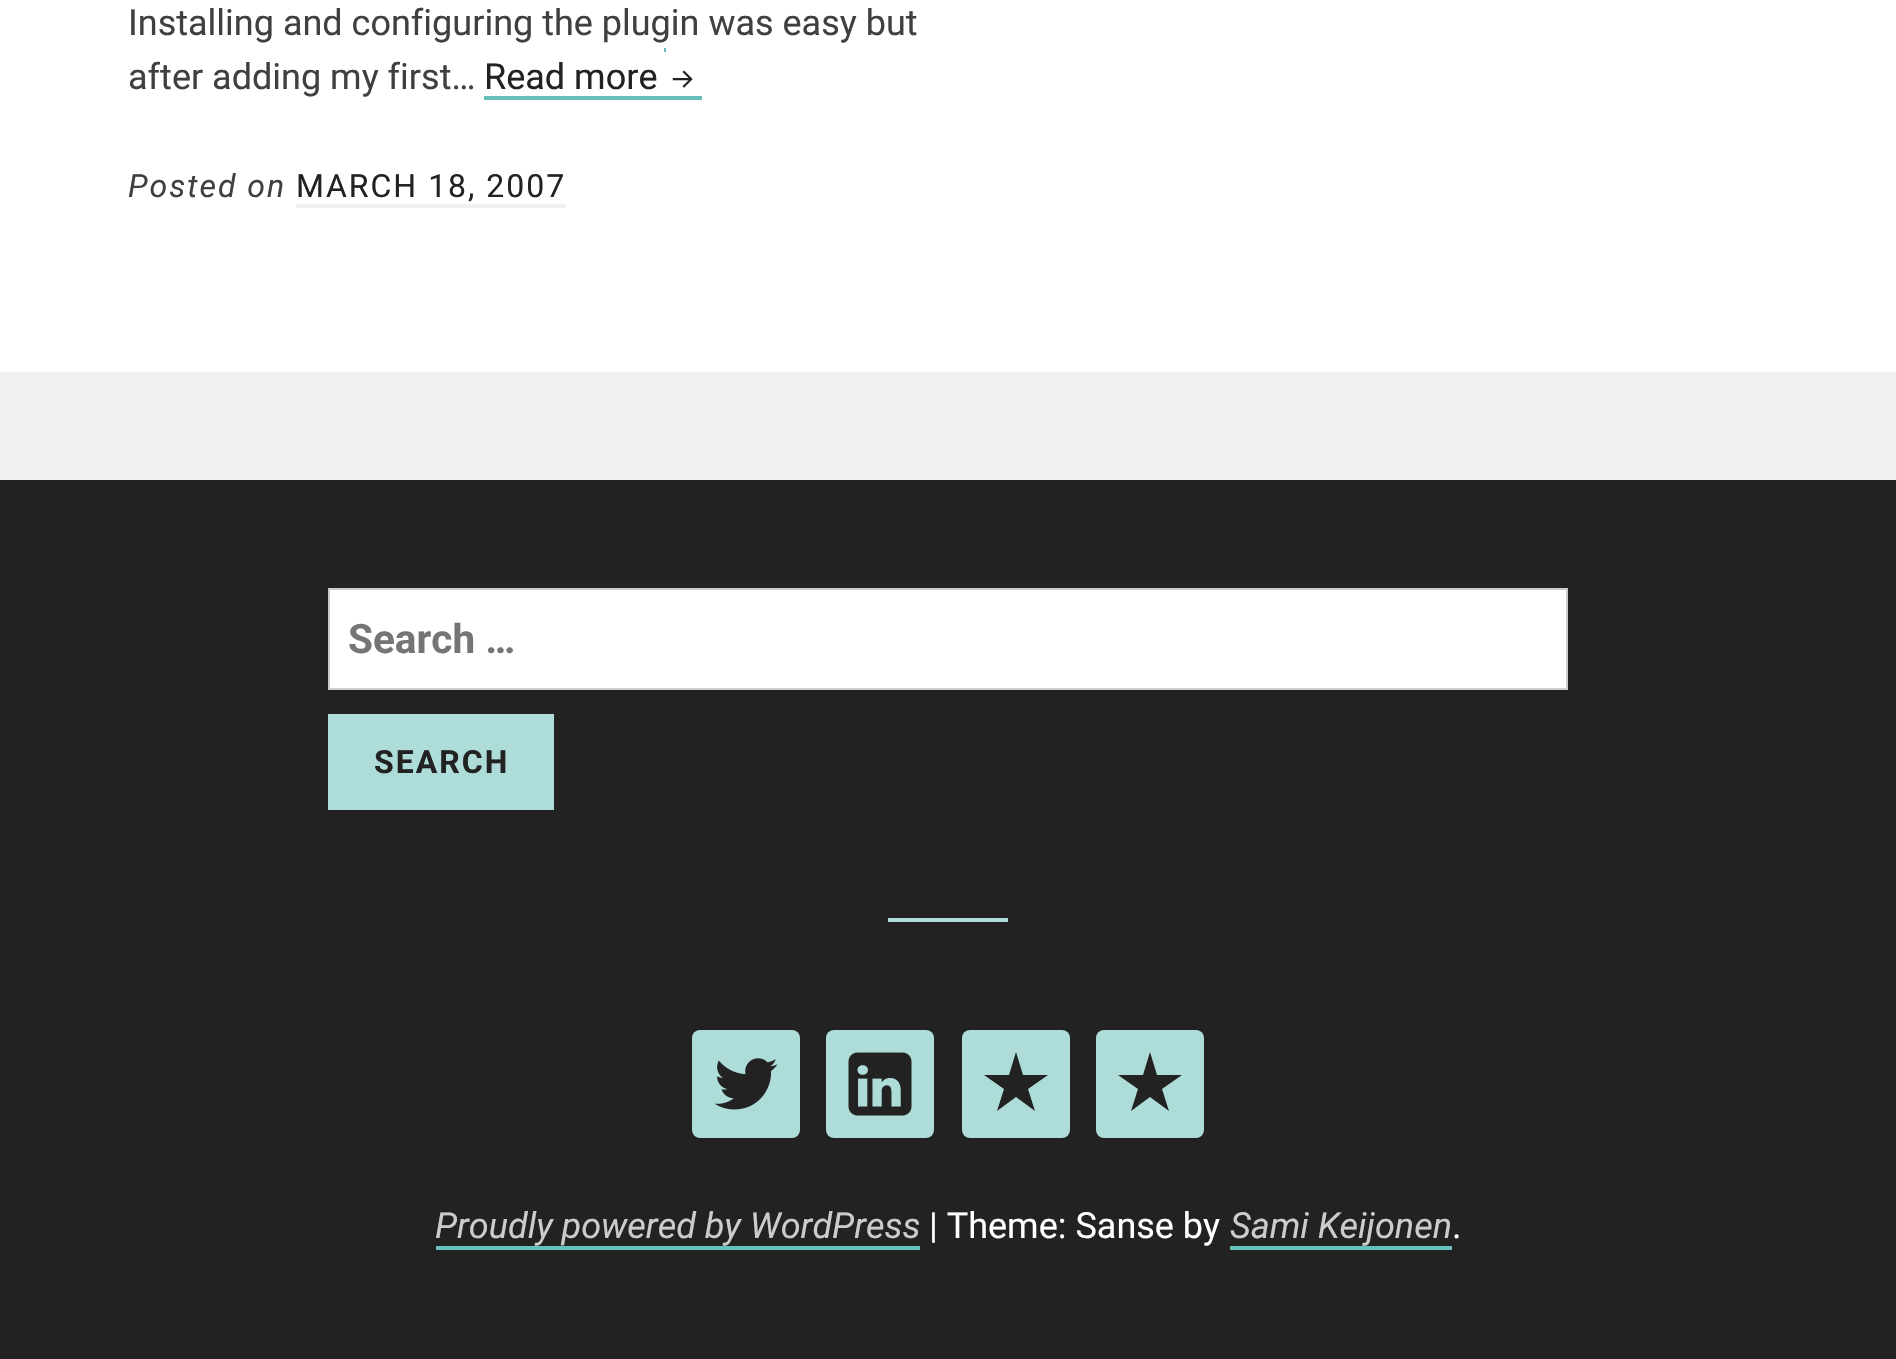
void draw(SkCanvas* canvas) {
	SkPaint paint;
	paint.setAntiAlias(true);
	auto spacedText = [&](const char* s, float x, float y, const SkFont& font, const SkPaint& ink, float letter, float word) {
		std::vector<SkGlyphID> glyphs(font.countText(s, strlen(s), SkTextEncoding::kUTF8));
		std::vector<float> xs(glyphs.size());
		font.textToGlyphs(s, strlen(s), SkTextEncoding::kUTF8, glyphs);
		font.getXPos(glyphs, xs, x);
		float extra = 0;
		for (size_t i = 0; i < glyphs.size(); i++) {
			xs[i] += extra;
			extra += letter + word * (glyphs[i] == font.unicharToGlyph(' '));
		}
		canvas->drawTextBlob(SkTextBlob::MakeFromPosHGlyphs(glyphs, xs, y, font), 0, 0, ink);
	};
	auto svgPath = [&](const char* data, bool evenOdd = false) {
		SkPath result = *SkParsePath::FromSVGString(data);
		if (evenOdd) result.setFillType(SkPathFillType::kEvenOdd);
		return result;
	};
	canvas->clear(0xfff0f0f0);
	paint.setColor(0xffffffff);
	canvas->drawRect(SkRect::MakeXYWH(0, 0, 1896, 372), paint);
	SkFont f1(fontMgr->matchFamilyStyle("Roboto", SkFontStyle::Normal()), 36);
	f1.setSubpixel(true);
	paint.setColor(0xff404040);
	canvas->drawString("Installing and configuring the plugin was easy but", 128, 35, f1, paint);
	canvas->drawString("after adding my first…", 128, 89, f1, paint);
	paint.setColor(0xff68bfb9);
	canvas->drawRect(SkRect::MakeXYWH(484, 96, 218, 4), paint);
	canvas->drawRect(SkRect::MakeXYWH(664, 48, 2, 4), paint);
	paint.setColor(0xff222222);
	canvas->drawString("Read more", 484, 89, f1, paint);
	canvas->drawImageRect(SkImages::DeferredFromEncodedData(SkData::MakeFromFileName("img1.png")), SkRect::MakeXYWH(672, 70, 21, 18), SkSamplingOptions());
	SkFont f2(fontMgr->matchFamilyStyle("Roboto", SkFontStyle::Italic()), 32);
	f2.setSubpixel(true);
	paint.setColor(0xff404040);
	spacedText("Posted on", 128, 197, f2, paint, 2, 0);
	SkFont f3(fontMgr->matchFamilyStyle("Roboto", SkFontStyle::Normal()), 32);
	f3.setSubpixel(true);
	paint.setColor(0xff222222);
	spacedText("MARCH 18, 2007", 296, 197, f3, paint, 2, 0);
	paint.setColor(0xfff0f0f0);
	canvas->drawRect(SkRect::MakeXYWH(296, 204, 270, 4), paint);
	paint.setColor(0xff222222);
	canvas->drawRect(SkRect::MakeXYWH(0, 480, 1896, 879), paint);
	paint.setColor(0xffffffff);
	canvas->drawRect(SkRect::MakeXYWH(329, 589, 1238, 100), paint);
	paint.setStroke(true);
	paint.setStrokeWidth(2);
	paint.setColor(0xffcccccc);
	canvas->drawRect(SkRect::MakeXYWH(329, 589, 1238, 100), paint);
	SkFont f4(fontMgr->matchFamilyStyle("Roboto", SkFontStyle::Bold()), 40.5);
	f4.setSubpixel(true);
	paint.setStroke(false);
	paint.setColor(0xff757575);
	canvas->drawString("Search …", 348, 653, f4, paint);
	paint.setColor(0xffaddcd9);
	canvas->drawRect(SkRect::MakeXYWH(328, 714, 226, 96), paint);
	SkFont f5(fontMgr->matchFamilyStyle("Roboto", SkFontStyle::Bold()), 32);
	f5.setSubpixel(true);
	paint.setColor(0xff222222);
	spacedText("SEARCH", 374, 773, f5, paint, 2, 0);
	paint.setColor(0xffaddcd9);
	canvas->drawRect(SkRect::MakeXYWH(888, 918, 120, 4), paint);
	canvas->drawRoundRect(SkRect::MakeXYWH(692, 1030, 108, 108), 8, 8, paint);
	canvas->drawImageRect(SkImages::DeferredFromEncodedData(SkData::MakeFromFileName("img2.png")), SkRect::MakeXYWH(714, 1058, 64, 52), SkSamplingOptions());
	canvas->drawRoundRect(SkRect::MakeXYWH(826, 1030, 108, 108), 8, 8, paint);
	canvas->drawImageRect(SkImages::DeferredFromEncodedData(SkData::MakeFromFileName("img3.png")), SkRect::MakeXYWH(848, 1052, 64, 64), SkSamplingOptions());
	canvas->drawRoundRect(SkRect::MakeXYWH(962, 1030, 108, 108), 8, 8, paint);
	paint.setColor(0xff222222);
	canvas->drawPath(svgPath("M1048 1075H1023L1016 1052L1009 1075H984L1004 1089L997 1111L1016 1097L1035 1111L1028 1089Z"), paint);
	paint.setColor(0xffaddcd9);
	canvas->drawRoundRect(SkRect::MakeXYWH(1096, 1030, 108, 108), 8, 8, paint);
	paint.setColor(0xff222222);
	canvas->drawPath(svgPath("M1182 1075H1157L1150 1052L1143 1075H1118L1138 1089L1131 1111L1150 1097L1169 1111L1162 1089Z"), paint);
	SkFont f6(fontMgr->matchFamilyStyle("Roboto", SkFontStyle::Italic()), 36);
	f6.setSubpixel(true);
	paint.setColor(0xffcccccc);
	canvas->drawString("Proudly powered by WordPress", 435, 1238, f6, paint);
	paint.setColor(0xff68bfb9);
	canvas->drawRect(SkRect::MakeXYWH(436, 1246, 484, 4), paint);
	paint.setColor(0xffffffff);
	canvas->drawString("| Theme: Sanse by", 929, 1238, f1, paint);
	paint.setColor(0xffcccccc);
	canvas->drawString("Sami Keijonen", 1230, 1238, f6, paint);
	paint.setColor(0xff68bfb9);
	canvas->drawRect(SkRect::MakeXYWH(1230, 1246, 222, 4), paint);
	paint.setColor(0xffffffff);
	canvas->drawString(".", 1452, 1238, f1, paint);
}
